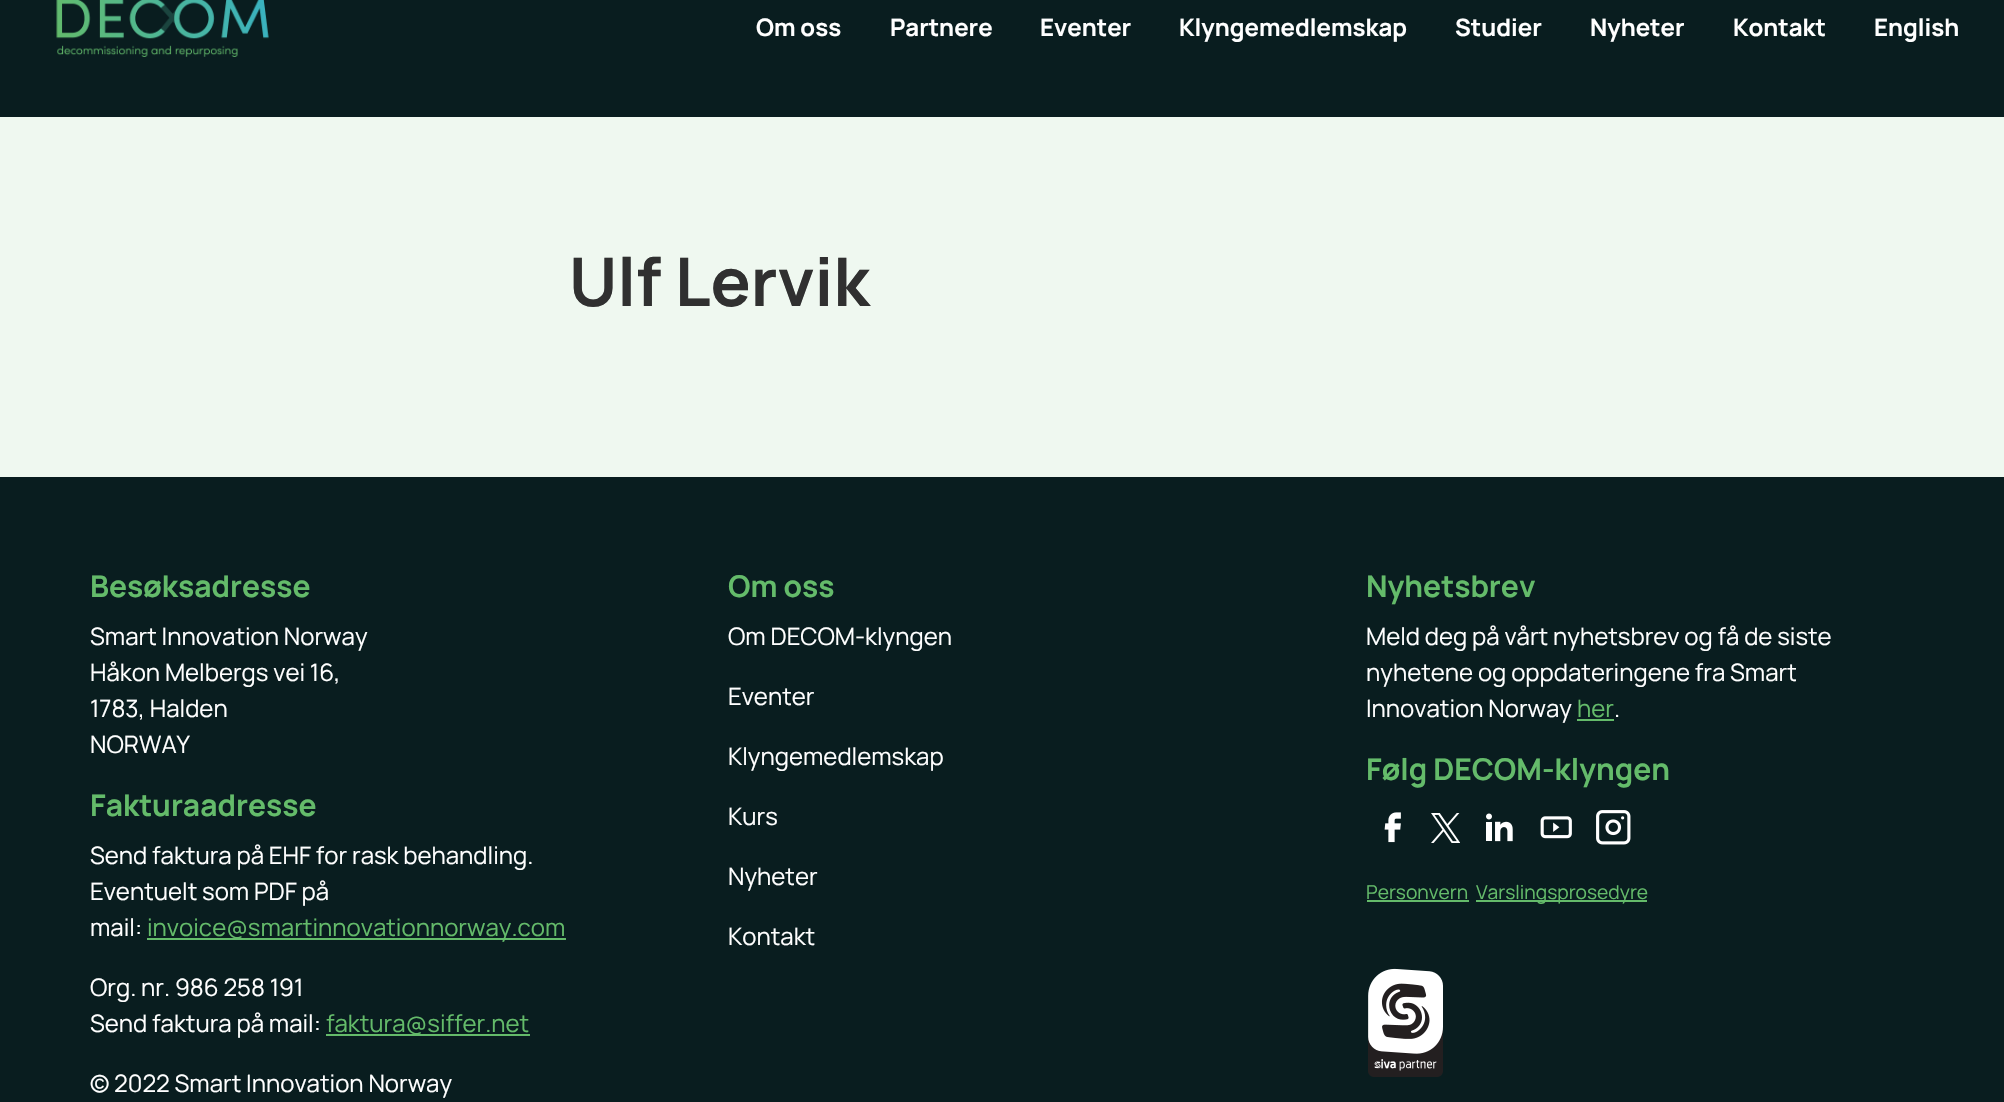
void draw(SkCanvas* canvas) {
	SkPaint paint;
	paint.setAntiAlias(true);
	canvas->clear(0xffeff8f0);
	paint.setColor(0xff091d1f);
	canvas->drawRect(SkRect::MakeXYWH(0, 0, 2004, 117), paint);
	canvas->drawImageRect(SkImages::DeferredFromEncodedData(SkData::MakeFromFileName("img1.png")), SkRect::MakeXYWH(56, 0, 213, 57), SkSamplingOptions());
	SkFont f1(fontMgr->matchFamilyStyle("Manrope", SkFontStyle::Bold()), 24);
	f1.setSubpixel(true);
	paint.setColor(0xffffffff);
	canvas->drawString("Om oss", 756, 36, f1, paint);
	canvas->drawString("Partnere", 890, 36, f1, paint);
	canvas->drawString("Eventer", 1040, 36, f1, paint);
	canvas->drawString("Klyngemedlemskap", 1179, 36, f1, paint);
	canvas->drawString("Studier", 1455, 36, f1, paint);
	canvas->drawString("Nyheter", 1590, 36, f1, paint);
	canvas->drawString("Kontakt", 1733, 36, f1, paint);
	canvas->drawString("English", 1874, 36, f1, paint);
	SkFont f2(fontMgr->matchFamilyStyle("Manrope", SkFontStyle::Bold()), 67);
	f2.setSubpixel(true);
	paint.setColor(0xff303030);
	canvas->drawString("Ulf Lervik", 569, 306, f2, paint);
	paint.setColor(0xff091d1f);
	canvas->drawRect(SkRect::MakeXYWH(0, 477, 2004, 625), paint);
	SkFont f3(fontMgr->matchFamilyStyle("Manrope", SkFontStyle::Bold()), 30);
	f3.setSubpixel(true);
	paint.setColor(0xff64bb6a);
	canvas->drawString("Besøksadresse", 90, 597, f3, paint);
	SkFont f4(fontMgr->matchFamilyStyle("Manrope", SkFontStyle::Normal()), 24);
	f4.setSubpixel(true);
	paint.setColor(0xffffffff);
	canvas->drawString("Smart Innovation Norway", 90, 645, f4, paint);
	canvas->drawString("Håkon Melbergs vei 16,", 90, 681, f4, paint);
	canvas->drawString("1783, Halden", 90, 717, f4, paint);
	canvas->drawString("NORWAY", 90, 753, f4, paint);
	paint.setColor(0xff64bb6a);
	canvas->drawString("Fakturaadresse", 90, 816, f3, paint);
	paint.setColor(0xffffffff);
	canvas->drawString("Send faktura på EHF for rask behandling.", 90, 864, f4, paint);
	canvas->drawString("Eventuelt som PDF på", 90, 900, f4, paint);
	canvas->drawString("mail:", 90, 936, f4, paint);
	paint.setColor(0xff64bb6a);
	canvas->drawRect(SkRect::MakeXYWH(147, 938, 419, 2), paint);
	canvas->drawString("invoice@smartinnovationnorway.com", 147, 936, f4, paint);
	paint.setColor(0xffffffff);
	canvas->drawString("Org. nr. 986 258 191", 90, 996, f4, paint);
	canvas->drawString("Send faktura på mail:", 90, 1032, f4, paint);
	paint.setColor(0xff64bb6a);
	canvas->drawRect(SkRect::MakeXYWH(326, 1034, 204, 2), paint);
	canvas->drawString("faktura@siffer.net", 326, 1032, f4, paint);
	paint.setColor(0xffffffff);
	canvas->drawString("© 2022 Smart Innovation Norway", 90, 1092, f4, paint);
	paint.setColor(0xff64bb6a);
	canvas->drawString("Om oss", 728, 597, f3, paint);
	paint.setColor(0xffffffff);
	canvas->drawString("Om DECOM-klyngen", 728, 645, f4, paint);
	canvas->drawString("Eventer", 728, 705, f4, paint);
	canvas->drawString("Klyngemedlemskap", 728, 765, f4, paint);
	canvas->drawString("Kurs", 728, 825, f4, paint);
	canvas->drawString("Nyheter", 728, 885, f4, paint);
	canvas->drawString("Kontakt", 728, 945, f4, paint);
	paint.setColor(0xff64bb6a);
	canvas->drawString("Nyhetsbrev", 1366, 597, f3, paint);
	paint.setColor(0xffffffff);
	canvas->drawString("Meld deg på vårt nyhetsbrev og få de siste", 1366, 645, f4, paint);
	canvas->drawString("nyhetene og oppdateringene fra Smart", 1366, 681, f4, paint);
	canvas->drawString("Innovation Norway", 1366, 717, f4, paint);
	paint.setColor(0xff64bb6a);
	canvas->drawString("her", 1577, 717, f4, paint);
	canvas->drawRect(SkRect::MakeXYWH(1577, 719, 37, 2), paint);
	paint.setColor(0xffffffff);
	canvas->drawString(".", 1614, 717, f4, paint);
	paint.setColor(0xff64bb6a);
	canvas->drawString("Følg DECOM-klyngen", 1366, 780, f3, paint);
	canvas->drawImageRect(SkImages::DeferredFromEncodedData(SkData::MakeFromFileName("img2.png")), SkRect::MakeXYWH(1384, 812, 17, 31), SkSamplingOptions());
	canvas->drawImageRect(SkImages::DeferredFromEncodedData(SkData::MakeFromFileName("img3.png")), SkRect::MakeXYWH(1431, 813, 29, 30), SkSamplingOptions());
	canvas->drawImageRect(SkImages::DeferredFromEncodedData(SkData::MakeFromFileName("img4.png")), SkRect::MakeXYWH(1486, 813, 27, 29), SkSamplingOptions());
	canvas->drawImageRect(SkImages::DeferredFromEncodedData(SkData::MakeFromFileName("img5.png")), SkRect::MakeXYWH(1540, 816, 32, 23), SkSamplingOptions());
	canvas->drawImageRect(SkImages::DeferredFromEncodedData(SkData::MakeFromFileName("img6.png")), SkRect::MakeXYWH(1596, 810, 35, 35), SkSamplingOptions());
	SkFont f5(fontMgr->matchFamilyStyle("Manrope", SkFontStyle::Normal()), 19.25);
	f5.setSubpixel(true);
	canvas->drawString("Personvern", 1366, 899, f5, paint);
	canvas->drawRect(SkRect::MakeXYWH(1367, 900, 102, 2), paint);
	canvas->drawRect(SkRect::MakeXYWH(1476, 900, 171, 2), paint);
	canvas->drawString("Varslingsprosedyre", 1476, 899, f5, paint);
	canvas->drawImageRect(SkImages::DeferredFromEncodedData(SkData::MakeFromFileName("img7.png")), SkRect::MakeXYWH(1368, 968, 75, 109), SkSamplingOptions());
}
